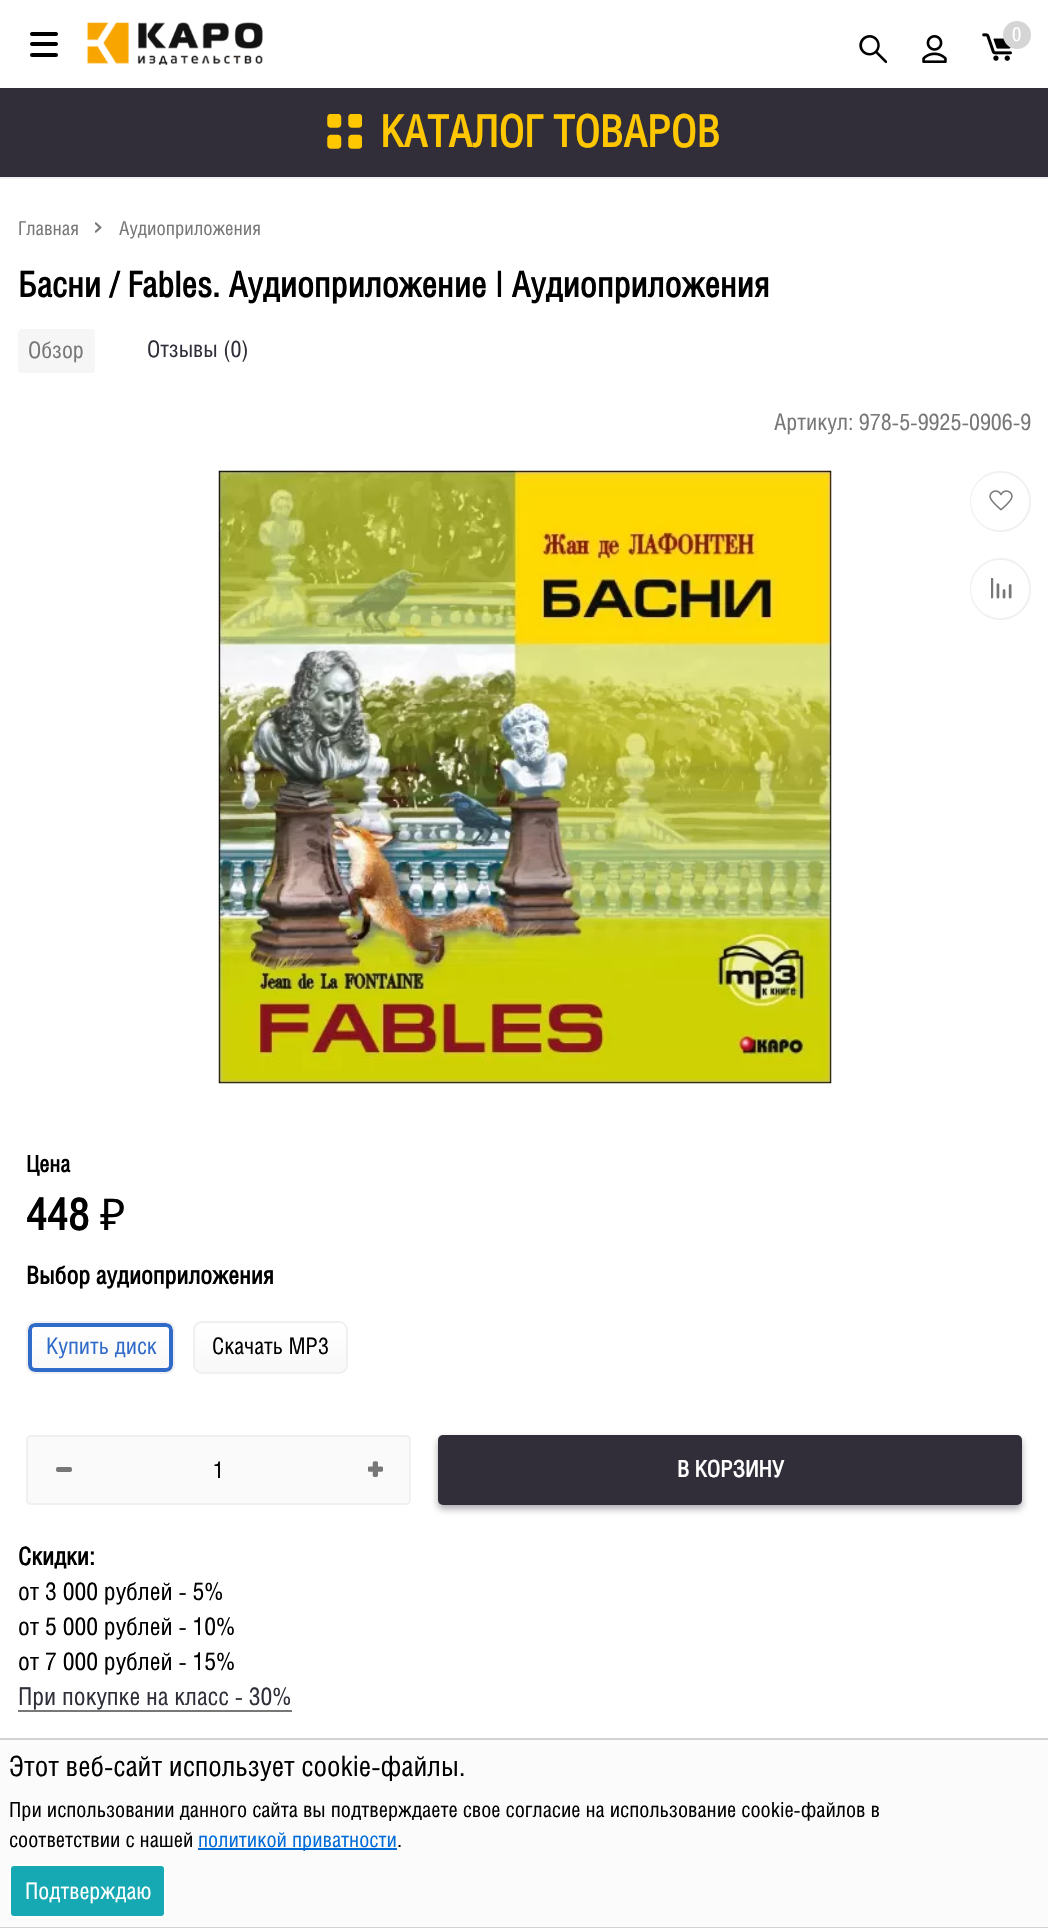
void draw(SkCanvas* canvas) {
	SkPaint paint;
	paint.setAntiAlias(true);
	auto svgPath = [&](const char* data, bool evenOdd = false) {
		SkPath result = *SkParsePath::FromSVGString(data);
		if (evenOdd) result.setFillType(SkPathFillType::kEvenOdd);
		return result;
	};
	canvas->clear(0xffffffff);
	paint.setColor(0xfff0f0f0);
	canvas->drawRect(SkRect::MakeXYWH(0, 177, 1048, 2), paint);
	paint.setColor(0xff000000);
	canvas->drawRoundRect(SkRect::MakeXYWH(30, 42, 28, 4), 2, 2, paint);
	canvas->drawRoundRect(SkRect::MakeXYWH(30, 32, 28, 4), 2, 2, paint);
	canvas->drawRoundRect(SkRect::MakeXYWH(30, 53, 28, 4), 2, 2, paint);
	canvas->drawImageRect(SkImages::DeferredFromEncodedData(SkData::MakeFromFileName("img1.png")), SkRect::MakeXYWH(87, 22, 176, 43), SkSamplingOptions());
	canvas->drawImageRect(SkImages::DeferredFromEncodedData(SkData::MakeFromFileName("img2.png")), SkRect::MakeXYWH(859, 35, 28, 28), SkSamplingOptions());
	canvas->drawImageRect(SkImages::DeferredFromEncodedData(SkData::MakeFromFileName("img3.png")), SkRect::MakeXYWH(922, 35, 25, 28), SkSamplingOptions());
	canvas->drawImageRect(SkImages::DeferredFromEncodedData(SkData::MakeFromFileName("img4.png")), SkRect::MakeXYWH(982, 33, 30, 28), SkSamplingOptions());
	paint.setColor(0xffd5d5d5);
	canvas->drawCircle(1017, 35, 14, paint);
	SkFont f1(fontMgr->matchFamilyStyle("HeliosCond", SkFontStyle::Normal()), 19.25);
	f1.setSubpixel(true);
	paint.setColor(0xffffffff);
	canvas->drawString("0", 1012, 41, f1, paint);
	paint.setColor(0xff312e39);
	canvas->drawRect(SkRect::MakeXYWH(0, 88, 1048, 89), paint);
	canvas->drawImageRect(SkImages::DeferredFromEncodedData(SkData::MakeFromFileName("img5.png")), SkRect::MakeXYWH(327, 114, 35, 35), SkSamplingOptions());
	SkFont f2(fontMgr->matchFamilyStyle("HeliosCond", SkFontStyle::Bold()), 43.75);
	f2.setSubpixel(true);
	paint.setColor(0xffffc700);
	canvas->drawString("КАТАЛОГ ТОВАРОВ", 380, 147, f2, paint);
	paint.setColor(0xff777777);
	canvas->drawString("Главная", 18, 235, f1, paint);
	canvas->drawImageRect(SkImages::DeferredFromEncodedData(SkData::MakeFromFileName("img6.png")), SkRect::MakeXYWH(95, 222, 7, 11), SkSamplingOptions());
	canvas->drawString("Аудиоприложения", 119, 235, f1, paint);
	SkFont f3(fontMgr->matchFamilyStyle("HeliosCond", SkFontStyle::Bold()), 35);
	f3.setSubpixel(true);
	paint.setColor(0xff000000);
	canvas->drawString("Басни / Fables. Аудиоприложение | Аудиоприложения", 18, 297, f3, paint);
	paint.setColor(0xfff6f6f6);
	canvas->drawRoundRect(SkRect::MakeXYWH(18, 329, 77, 44), 4, 4, paint);
	SkFont f4(fontMgr->matchFamilyStyle("HeliosCond", SkFontStyle::Normal()), 22.75);
	f4.setSubpixel(true);
	paint.setColor(0xff777777);
	canvas->drawString("Обзор", 28, 358, f4, paint);
	paint.setColor(0xff312e39);
	canvas->drawString("Отзывы (0)", 147, 357, f4, paint);
	paint.setColor(0xff777777);
	canvas->drawString("Артикул: 978-5-9925-0906-9", 774, 430, f4, paint);
	SkFont f5(fontMgr->matchFamilyStyle("HeliosCond", SkFontStyle::Bold()), 22.75);
	f5.setSubpixel(true);
	paint.setColor(0xff000000);
	canvas->drawString("Цена", 26, 1172, f5, paint);
	canvas->drawString("448", 26, 1230, f2, paint);
	SkFont f6(fontMgr->matchFamilyStyle("Noto Sans", SkFontStyle::Normal()), 43.75);
	f6.setSubpixel(true);
	canvas->drawString("₽", 100, 1230, f6, paint);
	SkFont f7(fontMgr->matchFamilyStyle("HeliosCond", SkFontStyle::Bold()), 24.5);
	f7.setSubpixel(true);
	canvas->drawString("Выбор аудиоприложения", 26, 1284, f7, paint);
	canvas->save();
	canvas->clipPath(svgPath("M35 1321H166C171 1321 175 1325 175 1330V1365C175 1370 171 1374 166 1374H35C30 1374 26 1370 26 1365V1330C26 1325 30 1321 35 1321Z"), true);
	{
		const SkColor colors[] = {0xfff8f8f8, 0xffffffff};
		const float stops[] = {0, 1};
		const SkPoint ends[] = {{101, 1372}, {101, 1323}};
		paint.setShader(SkGradientShader::MakeLinear(ends, colors, stops, 2, SkTileMode::kClamp));
		paint.setAlpha(255);
	}
	canvas->drawRect(SkRect::MakeXYWH(26, 1323, 149, 49), paint);
	canvas->restore();
	paint.setStroke(true);
	paint.setStrokeWidth(4);
	paint.setShader(nullptr);
	paint.setColor(0xff306bc9);
	canvas->drawRoundRect(SkRect::MakeXYWH(30, 1325, 141, 45), 5, 5, paint);
	paint.setStrokeWidth(2);
	paint.setColor(0xfff0f0f0);
	canvas->drawRoundRect(SkRect::MakeXYWH(27, 1322, 147, 51), 8, 8, paint);
	paint.setStroke(false);
	paint.setColor(0xff306bc9);
	canvas->drawString("Купить диск", 46, 1354, f4, paint);
	canvas->save();
	canvas->clipPath(svgPath("M202 1321H339C344 1321 348 1325 348 1330V1365C348 1370 344 1374 339 1374H202C197 1374 193 1370 193 1365V1330C193 1325 197 1321 202 1321Z"), true);
	{
		const SkColor colors[] = {0xfff8f8f8, 0xffffffff};
		const float stops[] = {0, 1};
		const SkPoint ends[] = {{270, 1372}, {270, 1323}};
		paint.setShader(SkGradientShader::MakeLinear(ends, colors, stops, 2, SkTileMode::kClamp));
		paint.setAlpha(255);
	}
	canvas->drawRect(SkRect::MakeXYWH(193, 1323, 155, 49), paint);
	canvas->restore();
	paint.setStroke(true);
	paint.setShader(nullptr);
	paint.setColor(0xfff0f0f0);
	canvas->drawRoundRect(SkRect::MakeXYWH(194, 1322, 153, 51), 8, 8, paint);
	paint.setStroke(false);
	paint.setColor(0xff000000);
	canvas->drawString("Скачать MP3", 212, 1354, f4, paint);
	paint.setColor(0xfffafafa);
	canvas->drawRoundRect(SkRect::MakeXYWH(27, 1436, 383, 68), 4, 4, paint);
	paint.setStroke(true);
	paint.setColor(0xfff0f0f0);
	canvas->drawRoundRect(SkRect::MakeXYWH(27, 1436, 383, 68), 4, 4, paint);
	paint.setStroke(false);
	paint.setColor(0xff777777);
	canvas->drawRoundRect(SkRect::MakeXYWH(56, 1467, 16, 5), 2, 2, paint);
	paint.setColor(0xff000000);
	canvas->drawString("1", 213, 1478, f4, paint);
	canvas->drawImageRect(SkImages::DeferredFromEncodedData(SkData::MakeFromFileName("img7.png")), SkRect::MakeXYWH(368, 1461, 15, 16), SkSamplingOptions());
	paint.setColor(0x66312e39);
	paint.setMaskFilter(SkMaskFilter::MakeBlur(kNormal_SkBlurStyle, 3.5));
	canvas->drawRoundRect(SkRect::MakeXYWH(438, 1439, 584, 70), 5, 5, paint);
	paint.setMaskFilter(nullptr);
	paint.setColor(0xff312e39);
	canvas->drawRoundRect(SkRect::MakeXYWH(438, 1435, 584, 70), 5, 5, paint);
	paint.setColor(0xffffffff);
	canvas->drawString("В КОРЗИНУ", 677, 1477, f5, paint);
	paint.setColor(0xff000000);
	canvas->drawString("Скидки:", 18, 1565, f7, paint);
	SkFont f8(fontMgr->matchFamilyStyle("HeliosCond", SkFontStyle::Normal()), 24.5);
	f8.setSubpixel(true);
	canvas->drawString("от 3 000 рублей - 5%", 18, 1600, f8, paint);
	canvas->drawString("от 5 000 рублей - 10%", 18, 1635, f8, paint);
	canvas->drawString("от 7 000 рублей - 15%", 18, 1670, f8, paint);
	paint.setColor(0xff312e39);
	canvas->drawString("При покупке на класс - 30%", 18, 1705, f8, paint);
	paint.setColor(0xff777777);
	canvas->drawRect(SkRect::MakeXYWH(18, 1710, 274, 2), paint);
	canvas->drawImageRect(SkImages::DeferredFromEncodedData(SkData::MakeFromFileName("img8.png")), SkRect::MakeXYWH(218, 470, 614, 614), SkSamplingOptions());
	paint.setStroke(true);
	paint.setColor(0xfff0f0f0);
	canvas->drawCircle(1000.5, 501.5, 29.5, paint);
	paint.setStroke(false);
	paint.setColor(0xffffffff);
	canvas->drawRoundRect(SkRect::MakeXYWH(971, 473, 58, 57), 28.5, 28.5, paint);
	canvas->drawImageRect(SkImages::DeferredFromEncodedData(SkData::MakeFromFileName("img9.png")), SkRect::MakeXYWH(989, 490, 24, 21), SkSamplingOptions());
	paint.setStroke(true);
	paint.setColor(0xfff0f0f0);
	canvas->drawRoundRect(SkRect::MakeXYWH(971, 559, 59, 60), 29.5, 29.5, paint);
	paint.setStroke(false);
	paint.setColor(0xffffffff);
	canvas->drawCircle(1000, 589, 29, paint);
	canvas->drawImageRect(SkImages::DeferredFromEncodedData(SkData::MakeFromFileName("img10.png")), SkRect::MakeXYWH(991, 578, 21, 21), SkSamplingOptions());
	paint.setColor(0xfffbfbfb);
	canvas->drawRect(SkRect::MakeXYWH(0, 1740, 1048, 187), paint);
	paint.setColor(0xffd2d2d2);
	canvas->drawRect(SkRect::MakeXYWH(0, 1738, 1048, 2), paint);
	canvas->drawRect(SkRect::MakeXYWH(0, 1927, 1048, 1), paint);
	SkFont f9(fontMgr->matchFamilyStyle("HeliosCond", SkFontStyle::Normal()), 28);
	f9.setSubpixel(true);
	paint.setColor(0xff000000);
	canvas->drawString("Этот веб-сайт использует cookie-файлы.", 9, 1776, f9, paint);
	SkFont f10(fontMgr->matchFamilyStyle("HeliosCond", SkFontStyle::Normal()), 21);
	f10.setSubpixel(true);
	canvas->drawString("При использовании данного сайта вы подтверждаете свое согласие на использование cookie-файлов в", 9, 1817, f10, paint);
	canvas->drawString("соответствии с нашей", 9, 1847, f10, paint);
	paint.setColor(0xff006bd8);
	canvas->drawRect(SkRect::MakeXYWH(198, 1848, 199, 2), paint);
	canvas->drawString("политикой приватности", 198, 1847, f10, paint);
	paint.setColor(0xff000000);
	canvas->drawString(".", 397, 1847, f10, paint);
	paint.setColor(0xff16a9b3);
	canvas->drawRoundRect(SkRect::MakeXYWH(10, 1865, 155, 52), 4, 4, paint);
	paint.setStroke(true);
	paint.setColor(0xffffffff);
	canvas->drawRoundRect(SkRect::MakeXYWH(10, 1865, 155, 52), 4, 4, paint);
	paint.setStroke(false);
	canvas->drawString("Подтверждаю", 25, 1899, f4, paint);
}
